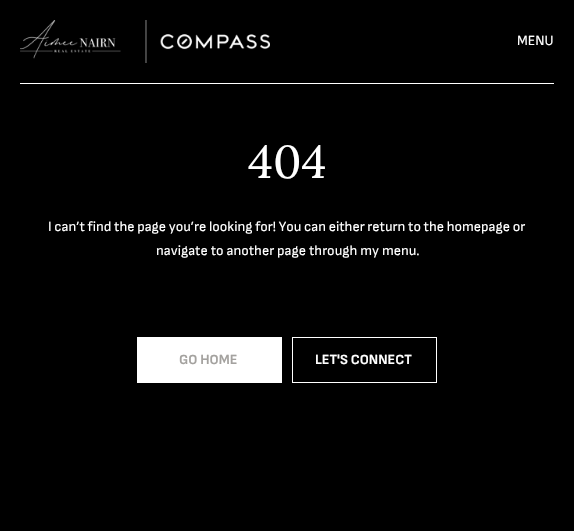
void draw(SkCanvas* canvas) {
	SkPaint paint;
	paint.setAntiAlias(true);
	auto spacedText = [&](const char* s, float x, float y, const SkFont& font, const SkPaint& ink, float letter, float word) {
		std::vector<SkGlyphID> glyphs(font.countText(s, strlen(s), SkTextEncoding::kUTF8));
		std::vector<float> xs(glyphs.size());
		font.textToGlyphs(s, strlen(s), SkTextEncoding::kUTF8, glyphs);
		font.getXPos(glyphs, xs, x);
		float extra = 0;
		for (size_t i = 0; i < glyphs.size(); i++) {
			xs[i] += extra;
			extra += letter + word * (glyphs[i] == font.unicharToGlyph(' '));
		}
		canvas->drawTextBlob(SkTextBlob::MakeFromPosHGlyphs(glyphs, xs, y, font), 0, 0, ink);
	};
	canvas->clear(0xff000000);
	paint.setColor(0xffffffff);
	canvas->drawRect(SkRect::MakeXYWH(20, 83, 534, 1), paint);
	canvas->drawImageRect(SkImages::DeferredFromEncodedData(SkData::MakeFromFileName("img1.png")), SkRect::MakeXYWH(20, 20, 250, 43), SkSamplingOptions());
	SkFont f1(fontMgr->matchFamilyStyle("Sofia Sans", SkFontStyle::Normal()), 14);
	f1.setSubpixel(true);
	canvas->drawString("MENU", 517, 45, f1, paint);
	SkFont f2(fontMgr->matchFamilyStyle("Lora", SkFontStyle::Normal()), 46);
	f2.setSubpixel(true);
	canvas->drawString("404", 248, 178, f2, paint);
	spacedText("I can’t find the page you’re looking for! You can either return to the homepage or", 48, 231, f1, paint, 0, -0.25);
	canvas->drawString("navigate to another page through my menu.", 156, 255, f1, paint);
	canvas->drawRect(SkRect::MakeXYWH(137, 337, 145, 46), paint);
	SkFont f3(fontMgr->matchFamilyStyle("Sofia Sans", SkFontStyle::Bold()), 14);
	f3.setSubpixel(true);
	paint.setColor(0xffa4a29f);
	canvas->drawString("GO HOME", 179, 364, f3, paint);
	paint.setStroke(true);
	paint.setStrokeWidth(1);
	paint.setColor(0xffffffff);
	canvas->drawRect(SkRect::MakeXYWH(292.5, 337.5, 144, 45), paint);
	paint.setStroke(false);
	canvas->drawString("LET'S CONNECT", 315, 364, f3, paint);
}
